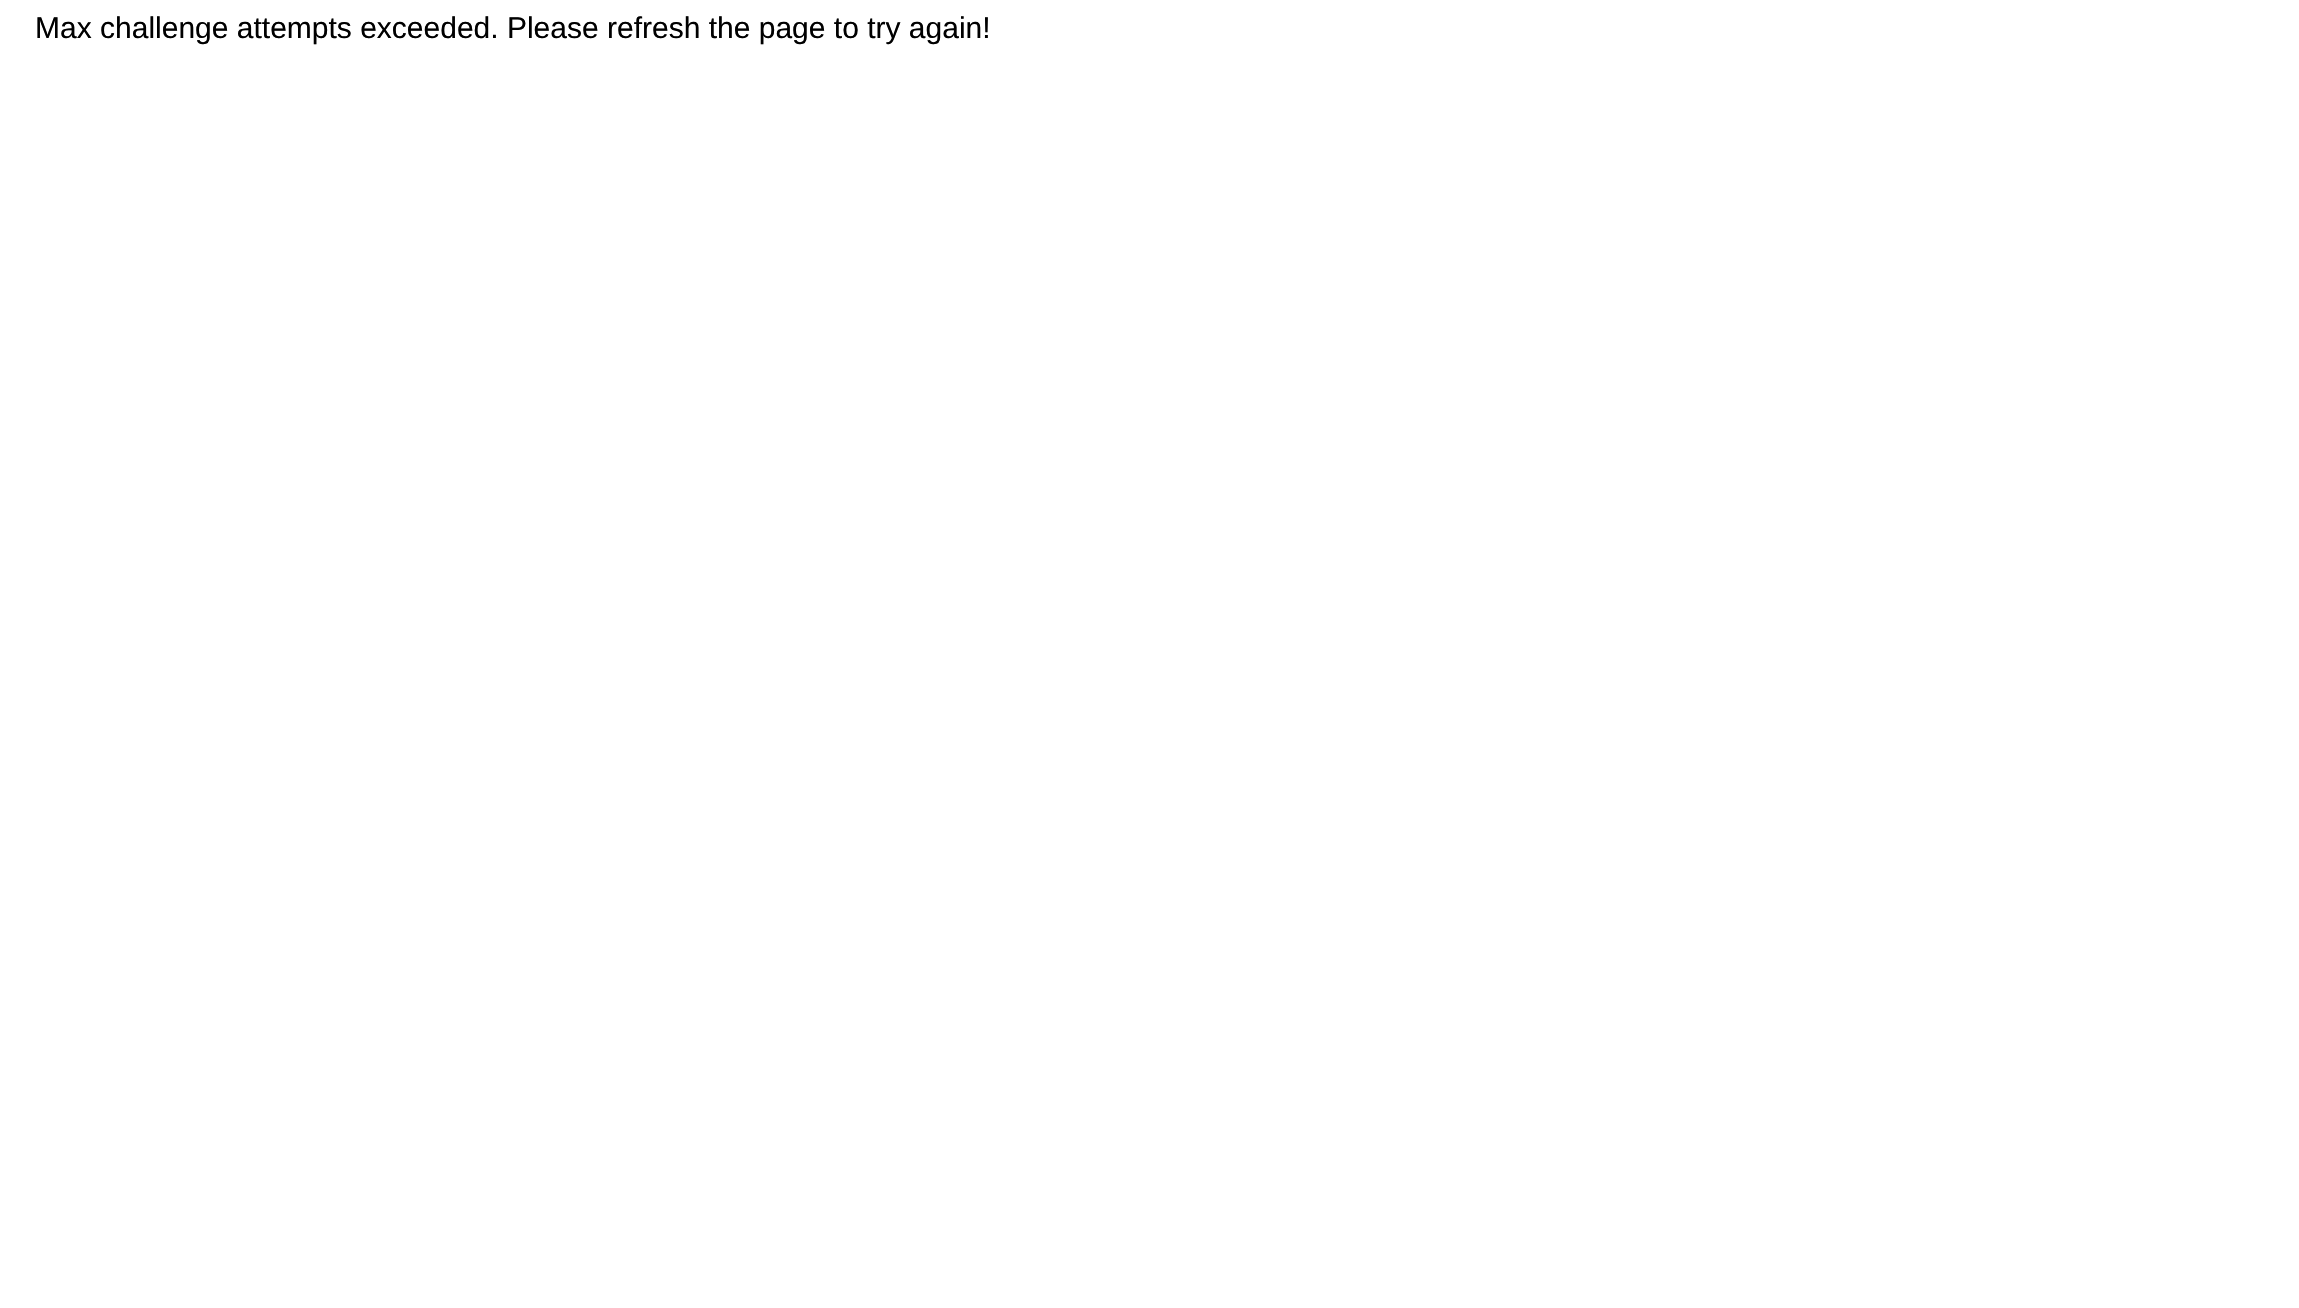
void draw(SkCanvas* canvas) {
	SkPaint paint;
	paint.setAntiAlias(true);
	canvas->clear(0xffffffff);
	SkFont f1(fontMgr->matchFamilyStyle("Liberation Sans", SkFontStyle::Normal()), 30);
	f1.setSubpixel(true);
	paint.setColor(0xff000000);
	canvas->drawString("Max challenge attempts exceeded. Please refresh the page to try again!", 35, 38, f1, paint);
}
